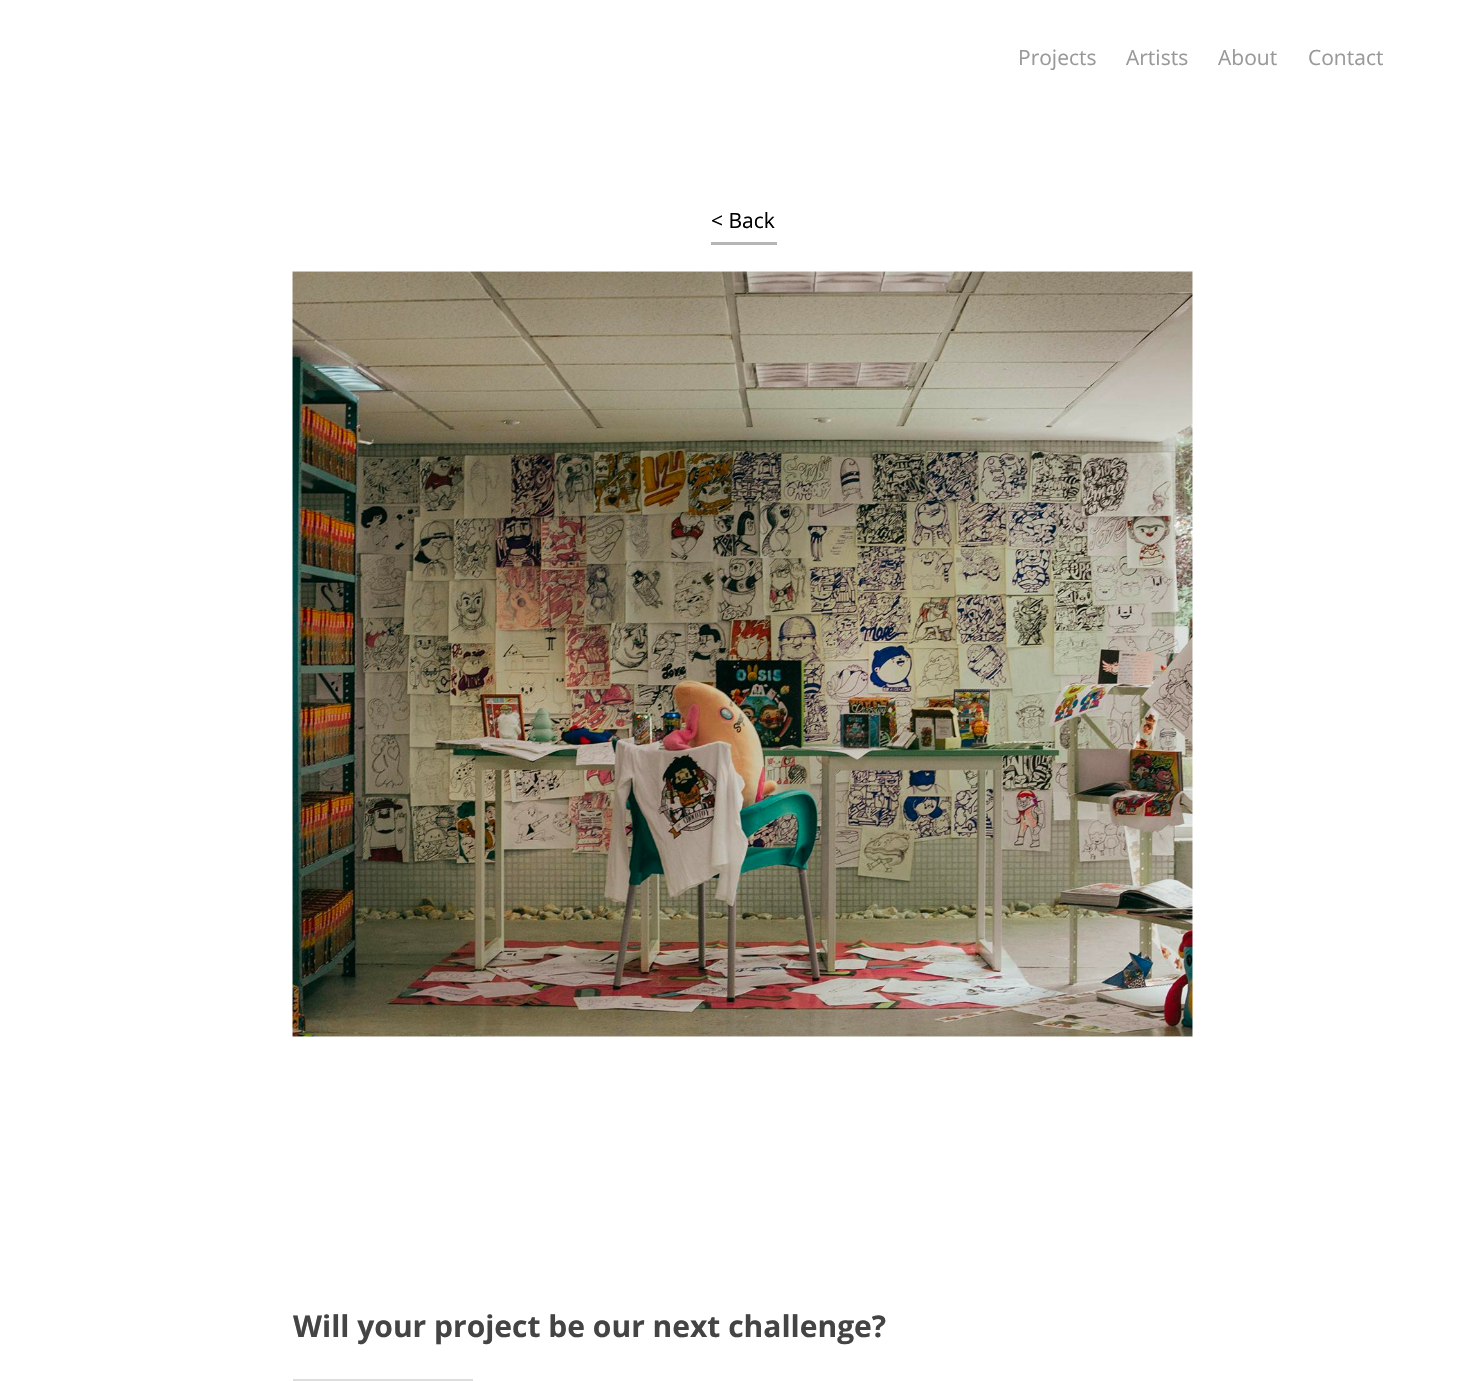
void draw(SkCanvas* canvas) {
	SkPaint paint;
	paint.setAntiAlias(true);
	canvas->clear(0xffffffff);
	SkFont f1(fontMgr->matchFamilyStyle("Open Sans", SkFontStyle::Normal()), 21);
	f1.setSubpixel(true);
	paint.setColor(0xff999999);
	canvas->drawString("Projects", 1018, 65, f1, paint);
	canvas->drawString("Artists", 1126, 65, f1, paint);
	canvas->drawString("About", 1218, 65, f1, paint);
	canvas->drawString("Contact", 1308, 65, f1, paint);
	paint.setColor(0xff000000);
	canvas->drawString("< Back", 711, 228, f1, paint);
	paint.setColor(0xffb5b5b5);
	canvas->drawRect(SkRect::MakeXYWH(711, 242, 66, 3), paint);
	canvas->drawImageRect(SkImages::DeferredFromEncodedData(SkData::MakeFromFileName("img1.png")), SkRect::MakeXYWH(292, 271, 901, 766), SkSamplingOptions());
	SkFont f2(fontMgr->matchFamilyStyle("Open Sans", SkFontStyle::Bold()), 30);
	f2.setSubpixel(true);
	paint.setColor(0xff444444);
	canvas->drawString("Will your project be our next challenge?", 293, 1337, f2, paint);
	paint.setColor(0xffdddddd);
	canvas->drawRect(SkRect::MakeXYWH(293, 1379, 180, 2), paint);
}
